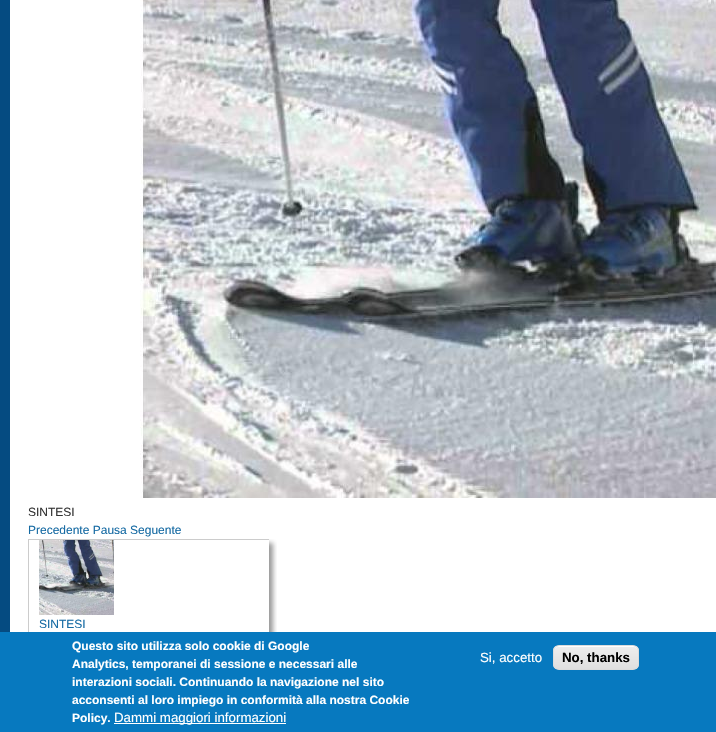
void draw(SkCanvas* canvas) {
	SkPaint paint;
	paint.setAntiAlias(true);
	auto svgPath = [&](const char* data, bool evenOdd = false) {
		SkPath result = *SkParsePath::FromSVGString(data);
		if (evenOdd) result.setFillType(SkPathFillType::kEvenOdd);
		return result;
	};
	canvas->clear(0xffffffff);
	paint.setStroke(true);
	paint.setStrokeWidth(10);
	paint.setColor(0xff054b81);
	canvas->drawRect(SkRect::MakeXYWH(5, -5, 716, 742), paint);
	canvas->drawImageRect(SkImages::DeferredFromEncodedData(SkData::MakeFromFileName("img1.png")), SkRect::MakeXYWH(140, 0, 576, 498), SkSamplingOptions());
	SkFont f1(fontMgr->matchFamilyStyle("Liberation Sans", SkFontStyle::Normal()), 12);
	f1.setSubpixel(true);
	paint.setStroke(false);
	paint.setColor(0xff333333);
	canvas->drawString("SINTESI", 28, 516, f1, paint);
	canvas->save();
	canvas->clipRect(SkRect::MakeXYWH(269, 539, 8, 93));
	paint.setColor(0x80323232);
	paint.setMaskFilter(SkMaskFilter::MakeBlur(kNormal_SkBlurStyle, 2.5));
	canvas->drawRect(SkRect::MakeXYWH(32, 543, 241, 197), paint);
	paint.setMaskFilter(nullptr);
	canvas->restore();
	paint.setColor(0xff156aa3);
	canvas->drawString("Precedente Pausa Seguente", 28, 534, f1, paint);
	paint.setColor(0xffcccccc);
	canvas->drawRect(SkRect::MakeXYWH(28, 539, 241, 1), paint);
	canvas->drawRect(SkRect::MakeXYWH(28, 539, 1, 93), paint);
	canvas->drawImageRect(SkImages::DeferredFromEncodedData(SkData::MakeFromFileName("img2.png")), SkRect::MakeXYWH(39, 540, 75, 75), SkSamplingOptions());
	paint.setColor(0xff156aa3);
	canvas->drawString("SINTESI", 39, 628, f1, paint);
	paint.setColor(0xff0779bf);
	canvas->drawRect(SkRect::MakeXYWH(0, 632, 716, 100), paint);
	SkFont f2(fontMgr->matchFamilyStyle("Liberation Sans", SkFontStyle::Bold()), 12);
	f2.setSubpixel(true);
	paint.setColor(0xffffffff);
	canvas->drawString("Questo sito utilizza solo cookie di Google", 72, 650, f2, paint);
	canvas->drawString("Analytics, temporanei di sessione e necessari alle", 72, 668, f2, paint);
	canvas->drawString("interazioni sociali. Continuando la navigazione nel sito", 72, 686, f2, paint);
	canvas->drawString("acconsenti al loro impiego in conformità alla nostra Cookie", 72, 704, f2, paint);
	canvas->drawString("Policy.", 72, 722, f2, paint);
	canvas->drawRect(SkRect::MakeXYWH(114, 723, 172, 1), paint);
	SkFont f3(fontMgr->matchFamilyStyle("Liberation Sans", SkFontStyle::Normal()), 13.3);
	f3.setSubpixel(true);
	canvas->drawString("Dammi maggiori informazioni", 114, 722, f3, paint);
	canvas->drawString("Si, accetto", 480, 662, f3, paint);
	canvas->save();
	canvas->clipPath(svgPath("M559 645H633C636.5 645 639 647.5 639 651V664C639 667.5 636.5 670 633 670H559C555.5 670 553 667.5 553 664V651C553 647.5 555.5 645 559 645Z"), true);
	{
		const SkColor colors[] = {0xffededed, 0xffdfdfdf};
		const float stops[] = {0.05, 1};
		const SkPoint ends[] = {{596, 646}, {596, 669}};
		paint.setShader(SkGradientShader::MakeLinear(ends, colors, stops, 2, SkTileMode::kClamp));
		paint.setAlpha(255);
	}
	canvas->drawRect(SkRect::MakeXYWH(553, 646, 86, 23), paint);
	canvas->restore();
	paint.setShader(nullptr);
	paint.setColor(0xffffffff);
	canvas->drawPath(svgPath("M559 647H633C636 647 638 649 638 652C638 643 626 646 621 646H571C566 646 554 643 554 652C554 649 556 647 559 647Z"), paint);
	paint.setStroke(true);
	paint.setStrokeWidth(1);
	paint.setColor(0xffdcdcdc);
	canvas->drawRoundRect(SkRect::MakeXYWH(553.5, 645.5, 85, 24), 5.5, 5.5, paint);
	SkFont f4(fontMgr->matchFamilyStyle("Liberation Sans", SkFontStyle::Bold()), 13.3);
	f4.setSubpixel(true);
	paint.setStroke(false);
	paint.setColor(0xff000000);
	canvas->drawString("No, thanks", 562, 662, f4, paint);
}
